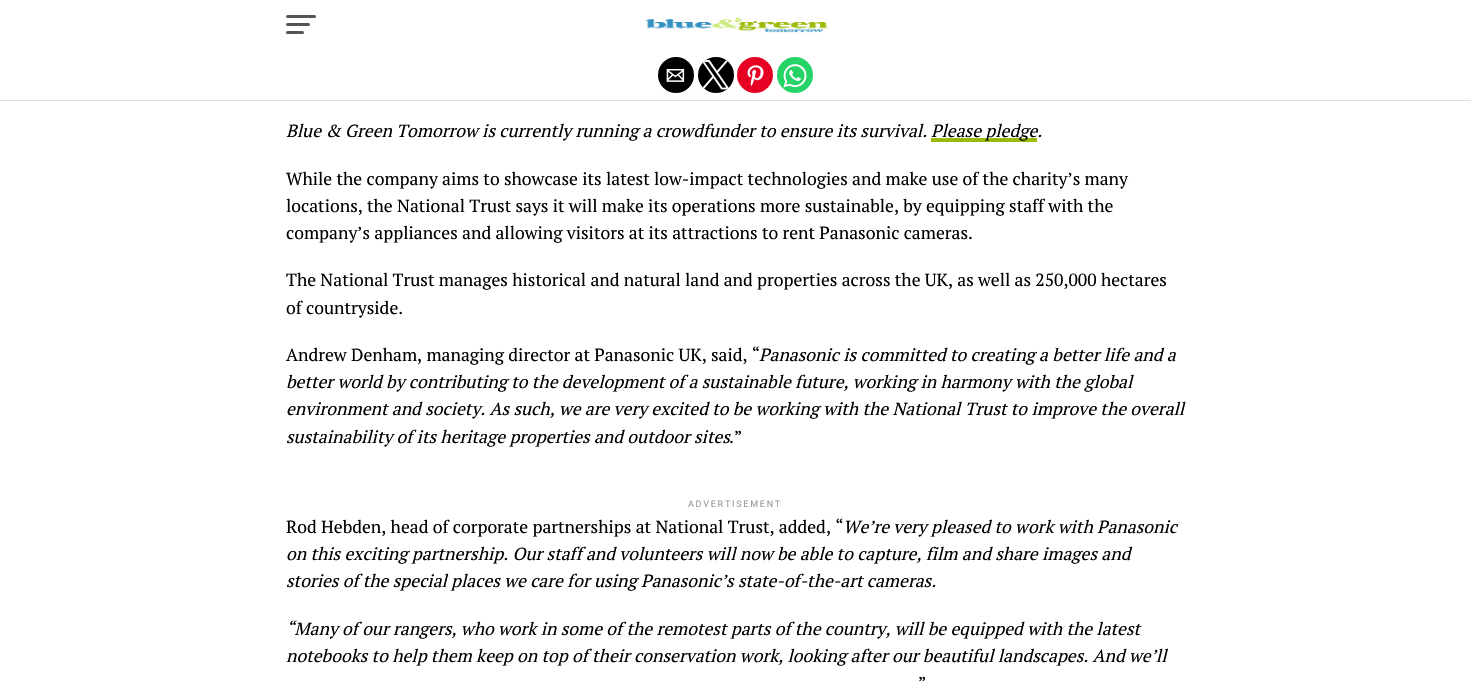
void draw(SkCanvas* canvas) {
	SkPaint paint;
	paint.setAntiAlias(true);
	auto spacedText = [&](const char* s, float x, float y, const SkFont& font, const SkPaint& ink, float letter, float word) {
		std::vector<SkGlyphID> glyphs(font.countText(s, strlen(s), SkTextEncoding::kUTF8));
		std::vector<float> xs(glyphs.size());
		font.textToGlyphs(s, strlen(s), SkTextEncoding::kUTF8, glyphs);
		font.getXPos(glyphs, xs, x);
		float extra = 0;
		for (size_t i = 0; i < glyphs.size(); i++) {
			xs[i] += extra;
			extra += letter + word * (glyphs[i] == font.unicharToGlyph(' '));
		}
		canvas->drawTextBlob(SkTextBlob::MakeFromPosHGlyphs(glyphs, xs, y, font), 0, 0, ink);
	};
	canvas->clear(0xffffffff);
	paint.setColor(0xff555555);
	canvas->drawRoundRect(SkRect::MakeXYWH(286, 15, 30, 3), 1.5, 1.5, paint);
	canvas->drawRoundRect(SkRect::MakeXYWH(286, 23, 24, 3), 1.5, 1.5, paint);
	canvas->drawRoundRect(SkRect::MakeXYWH(286, 31, 18, 3), 1.5, 1.5, paint);
	canvas->drawImageRect(SkImages::DeferredFromEncodedData(SkData::MakeFromFileName("img1.png")), SkRect::MakeXYWH(645, 17, 183, 16), SkSamplingOptions());
	paint.setColor(0xffdddddd);
	canvas->drawRect(SkRect::MakeXYWH(0, 100, 1471, 1), paint);
	paint.setColor(0xff000000);
	canvas->drawCircle(676, 75, 18, paint);
	canvas->drawImageRect(SkImages::DeferredFromEncodedData(SkData::MakeFromFileName("img2.png")), SkRect::MakeXYWH(666, 69, 19, 13), SkSamplingOptions());
	canvas->drawCircle(716, 75, 18, paint);
	canvas->drawImageRect(SkImages::DeferredFromEncodedData(SkData::MakeFromFileName("img3.png")), SkRect::MakeXYWH(703, 60, 26, 30), SkSamplingOptions());
	paint.setColor(0xffe60023);
	canvas->drawCircle(755, 75, 18, paint);
	canvas->drawImageRect(SkImages::DeferredFromEncodedData(SkData::MakeFromFileName("img4.png")), SkRect::MakeXYWH(747, 65, 17, 21), SkSamplingOptions());
	paint.setColor(0xff25d366);
	canvas->drawCircle(795, 75, 18, paint);
	canvas->drawImageRect(SkImages::DeferredFromEncodedData(SkData::MakeFromFileName("img5.png")), SkRect::MakeXYWH(783, 64, 24, 24), SkSamplingOptions());
	SkFont f1(fontMgr->matchFamilyStyle("PT Serif", SkFontStyle::Italic()), 17.6);
	f1.setSubpixel(true);
	paint.setColor(0xff000000);
	canvas->drawString("Blue & Green Tomorrow is currently running a crowdfunder to ensure its survival.", 286, 137, f1, paint);
	paint.setColor(0xff99bb0b);
	canvas->drawRect(SkRect::MakeXYWH(931, 138, 106, 4), paint);
	paint.setColor(0xff000000);
	canvas->drawString("Please pledge.", 931, 137, f1, paint);
	SkFont f2(fontMgr->matchFamilyStyle("PT Serif", SkFontStyle::Normal()), 17.6);
	f2.setSubpixel(true);
	canvas->drawString("While the company aims to showcase its latest low-impact technologies and make use of the charity’s many", 286, 185, f2, paint);
	canvas->drawString("locations, the National Trust says it will make its operations more sustainable, by equipping staff with the", 286, 212, f2, paint);
	canvas->drawString("company’s appliances and allowing visitors at its attractions to rent Panasonic cameras.", 286, 239, f2, paint);
	canvas->drawString("The National Trust manages historical and natural land and properties across the UK, as well as 250,000 hectares", 286, 286, f2, paint);
	canvas->drawString("of countryside.", 286, 314, f2, paint);
	canvas->drawString("Andrew Denham, managing director at Panasonic UK, said, “", 286, 361, f2, paint);
	canvas->drawString("Panasonic is committed to creating a better life and a", 759, 361, f1, paint);
	canvas->drawString("better world by contributing to the development of a sustainable future, working in harmony with the global", 286, 388, f1, paint);
	canvas->drawString("environment and society. As such, we are very excited to be working with the National Trust to improve the overall", 286, 415, f1, paint);
	canvas->drawString("sustainability of its heritage properties and outdoor sites", 286, 443, f1, paint);
	canvas->drawString(".”", 729, 443, f2, paint);
	SkFont f3(fontMgr->matchFamilyStyle("Roboto", SkFontStyle::Normal()), 9);
	f3.setSubpixel(true);
	paint.setColor(0xff999999);
	spacedText("ADVERTISEMENT", 688, 507, f3, paint, 1.75, 0);
	paint.setColor(0xff000000);
	canvas->drawString("Rod Hebden, head of corporate partnerships at National Trust, added, “", 286, 533, f2, paint);
	canvas->drawString("We’re very pleased to work with Panasonic", 843, 533, f1, paint);
	canvas->drawString("on this exciting partnership. Our staff and volunteers will now be able to capture, film and share images and", 286, 560, f1, paint);
	canvas->drawString("stories of the special places we care for using Panasonic’s state-of-the-art cameras.", 286, 587, f1, paint);
	canvas->drawString("“Many of our rangers, who work in some of the remotest parts of the country, will be equipped with the latest", 286, 635, f1, paint);
	canvas->drawString("notebooks to help them keep on top of their conservation work, looking after our beautiful landscapes. And we’ll", 286, 662, f1, paint);
	canvas->drawString("”", 918, 689, f2, paint);
}
